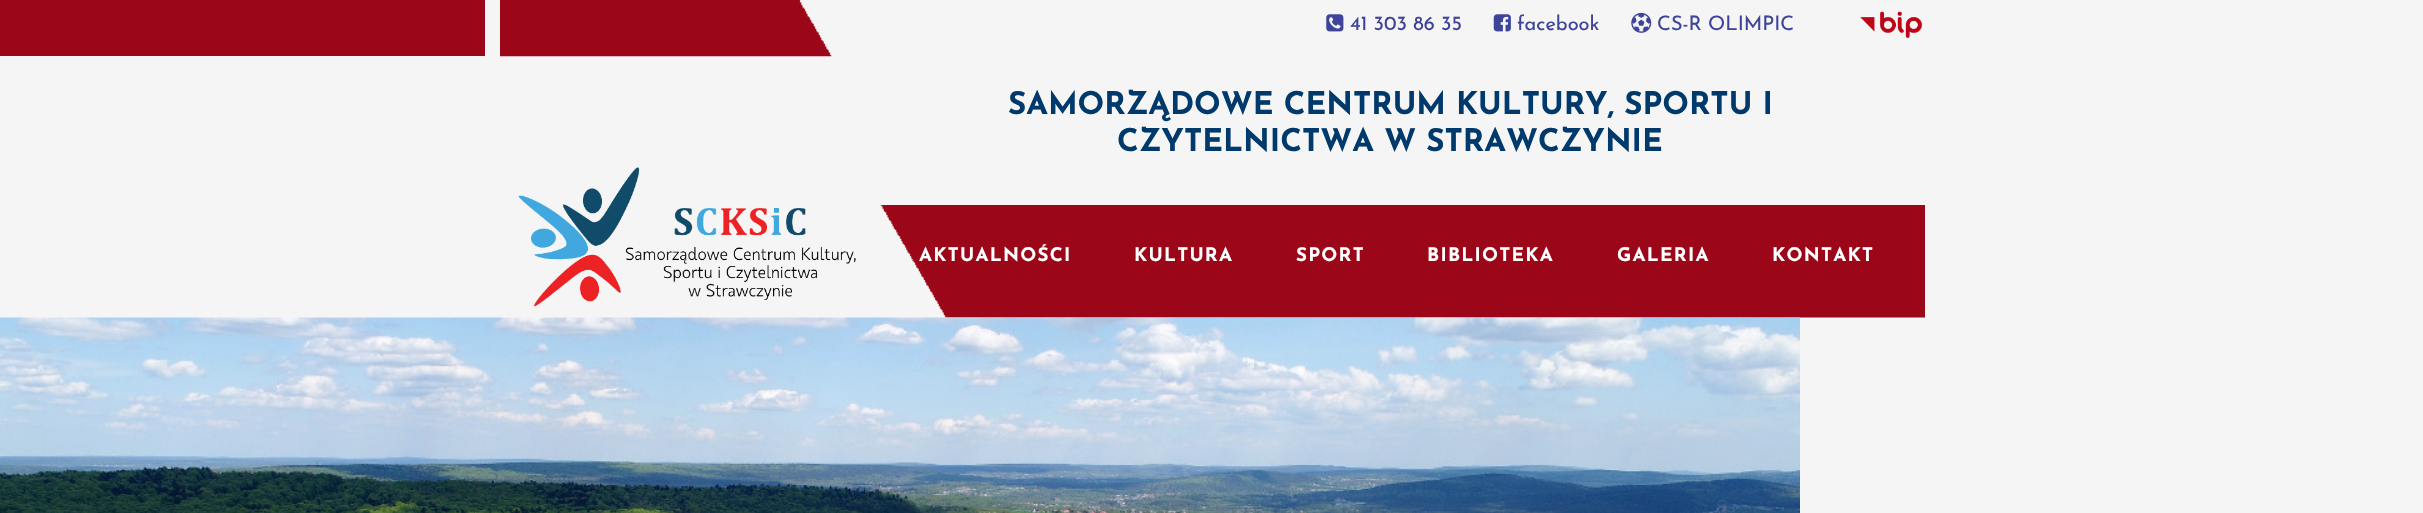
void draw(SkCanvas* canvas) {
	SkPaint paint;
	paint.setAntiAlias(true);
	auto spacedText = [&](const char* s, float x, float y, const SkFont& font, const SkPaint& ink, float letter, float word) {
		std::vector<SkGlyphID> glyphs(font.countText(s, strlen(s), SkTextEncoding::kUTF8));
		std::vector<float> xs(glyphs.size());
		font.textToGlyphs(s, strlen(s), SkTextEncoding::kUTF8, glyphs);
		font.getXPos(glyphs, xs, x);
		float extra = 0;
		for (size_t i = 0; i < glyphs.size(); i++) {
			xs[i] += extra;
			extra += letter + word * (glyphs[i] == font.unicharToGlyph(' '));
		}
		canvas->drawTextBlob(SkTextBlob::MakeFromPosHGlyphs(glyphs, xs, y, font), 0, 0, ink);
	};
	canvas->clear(0xfff5f5f5);
	paint.setColor(0xff9b0718);
	canvas->drawRect(SkRect::MakeXYWH(0, 0, 485, 56), paint);
	canvas->drawImageRect(SkImages::DeferredFromEncodedData(SkData::MakeFromFileName("img1.png")), SkRect::MakeXYWH(500, 0, 332, 57), SkSamplingOptions());
	canvas->drawImageRect(SkImages::DeferredFromEncodedData(SkData::MakeFromFileName("img2.png")), SkRect::MakeXYWH(1326, 14, 18, 18), SkSamplingOptions());
	SkFont f1(fontMgr->matchFamilyStyle("Josefin Sans", SkFontStyle::Normal()), 20);
	f1.setSubpixel(true);
	paint.setColor(0xff3d449a);
	canvas->drawString("41 303 86 35", 1350, 30, f1, paint);
	canvas->drawImageRect(SkImages::DeferredFromEncodedData(SkData::MakeFromFileName("img3.png")), SkRect::MakeXYWH(1493, 14, 18, 18), SkSamplingOptions());
	canvas->drawString("facebook", 1517, 30, f1, paint);
	canvas->drawImageRect(SkImages::DeferredFromEncodedData(SkData::MakeFromFileName("img4.png")), SkRect::MakeXYWH(1631, 12, 21, 21), SkSamplingOptions());
	canvas->drawString("CS-R OLIMPIC", 1657, 30, f1, paint);
	canvas->drawImageRect(SkImages::DeferredFromEncodedData(SkData::MakeFromFileName("img5.png")), SkRect::MakeXYWH(1860, 11, 62, 27), SkSamplingOptions());
	SkFont f2(fontMgr->matchFamilyStyle("Josefin Sans", SkFontStyle::Bold()), 31.25);
	f2.setSubpixel(true);
	paint.setColor(0xff00396b);
	canvas->drawString("SAMORZĄDOWE CENTRUM KULTURY, SPORTU I", 1008, 114, f2, paint);
	canvas->drawString("CZYTELNICTWA W STRAWCZYNIE", 1117, 151, f2, paint);
	canvas->drawImageRect(SkImages::DeferredFromEncodedData(SkData::MakeFromFileName("img6.png")), SkRect::MakeXYWH(518, 167, 338, 140), SkSamplingOptions());
	canvas->drawImageRect(SkImages::DeferredFromEncodedData(SkData::MakeFromFileName("img7.png")), SkRect::MakeXYWH(881, 205, 1044, 113), SkSamplingOptions());
	SkFont f3(fontMgr->matchFamilyStyle("Josefin Sans", SkFontStyle::Bold()), 18.75);
	f3.setSubpixel(true);
	paint.setColor(0xffffffff);
	spacedText("AKTUALNOŚCI", 919, 261, f3, paint, 1.25, 0);
	spacedText("KULTURA", 1134, 261, f3, paint, 1.25, 0);
	spacedText("SPORT", 1296, 261, f3, paint, 1.25, 0);
	spacedText("BIBLIOTEKA", 1427, 261, f3, paint, 1.25, 0);
	spacedText("GALERIA", 1617, 261, f3, paint, 1.25, 0);
	spacedText("KONTAKT", 1772, 261, f3, paint, 1.25, 0);
	canvas->drawImageRect(SkImages::DeferredFromEncodedData(SkData::MakeFromFileName("img8.png")), SkRect::MakeXYWH(0, 317, 1800, 196), SkSamplingOptions());
}
